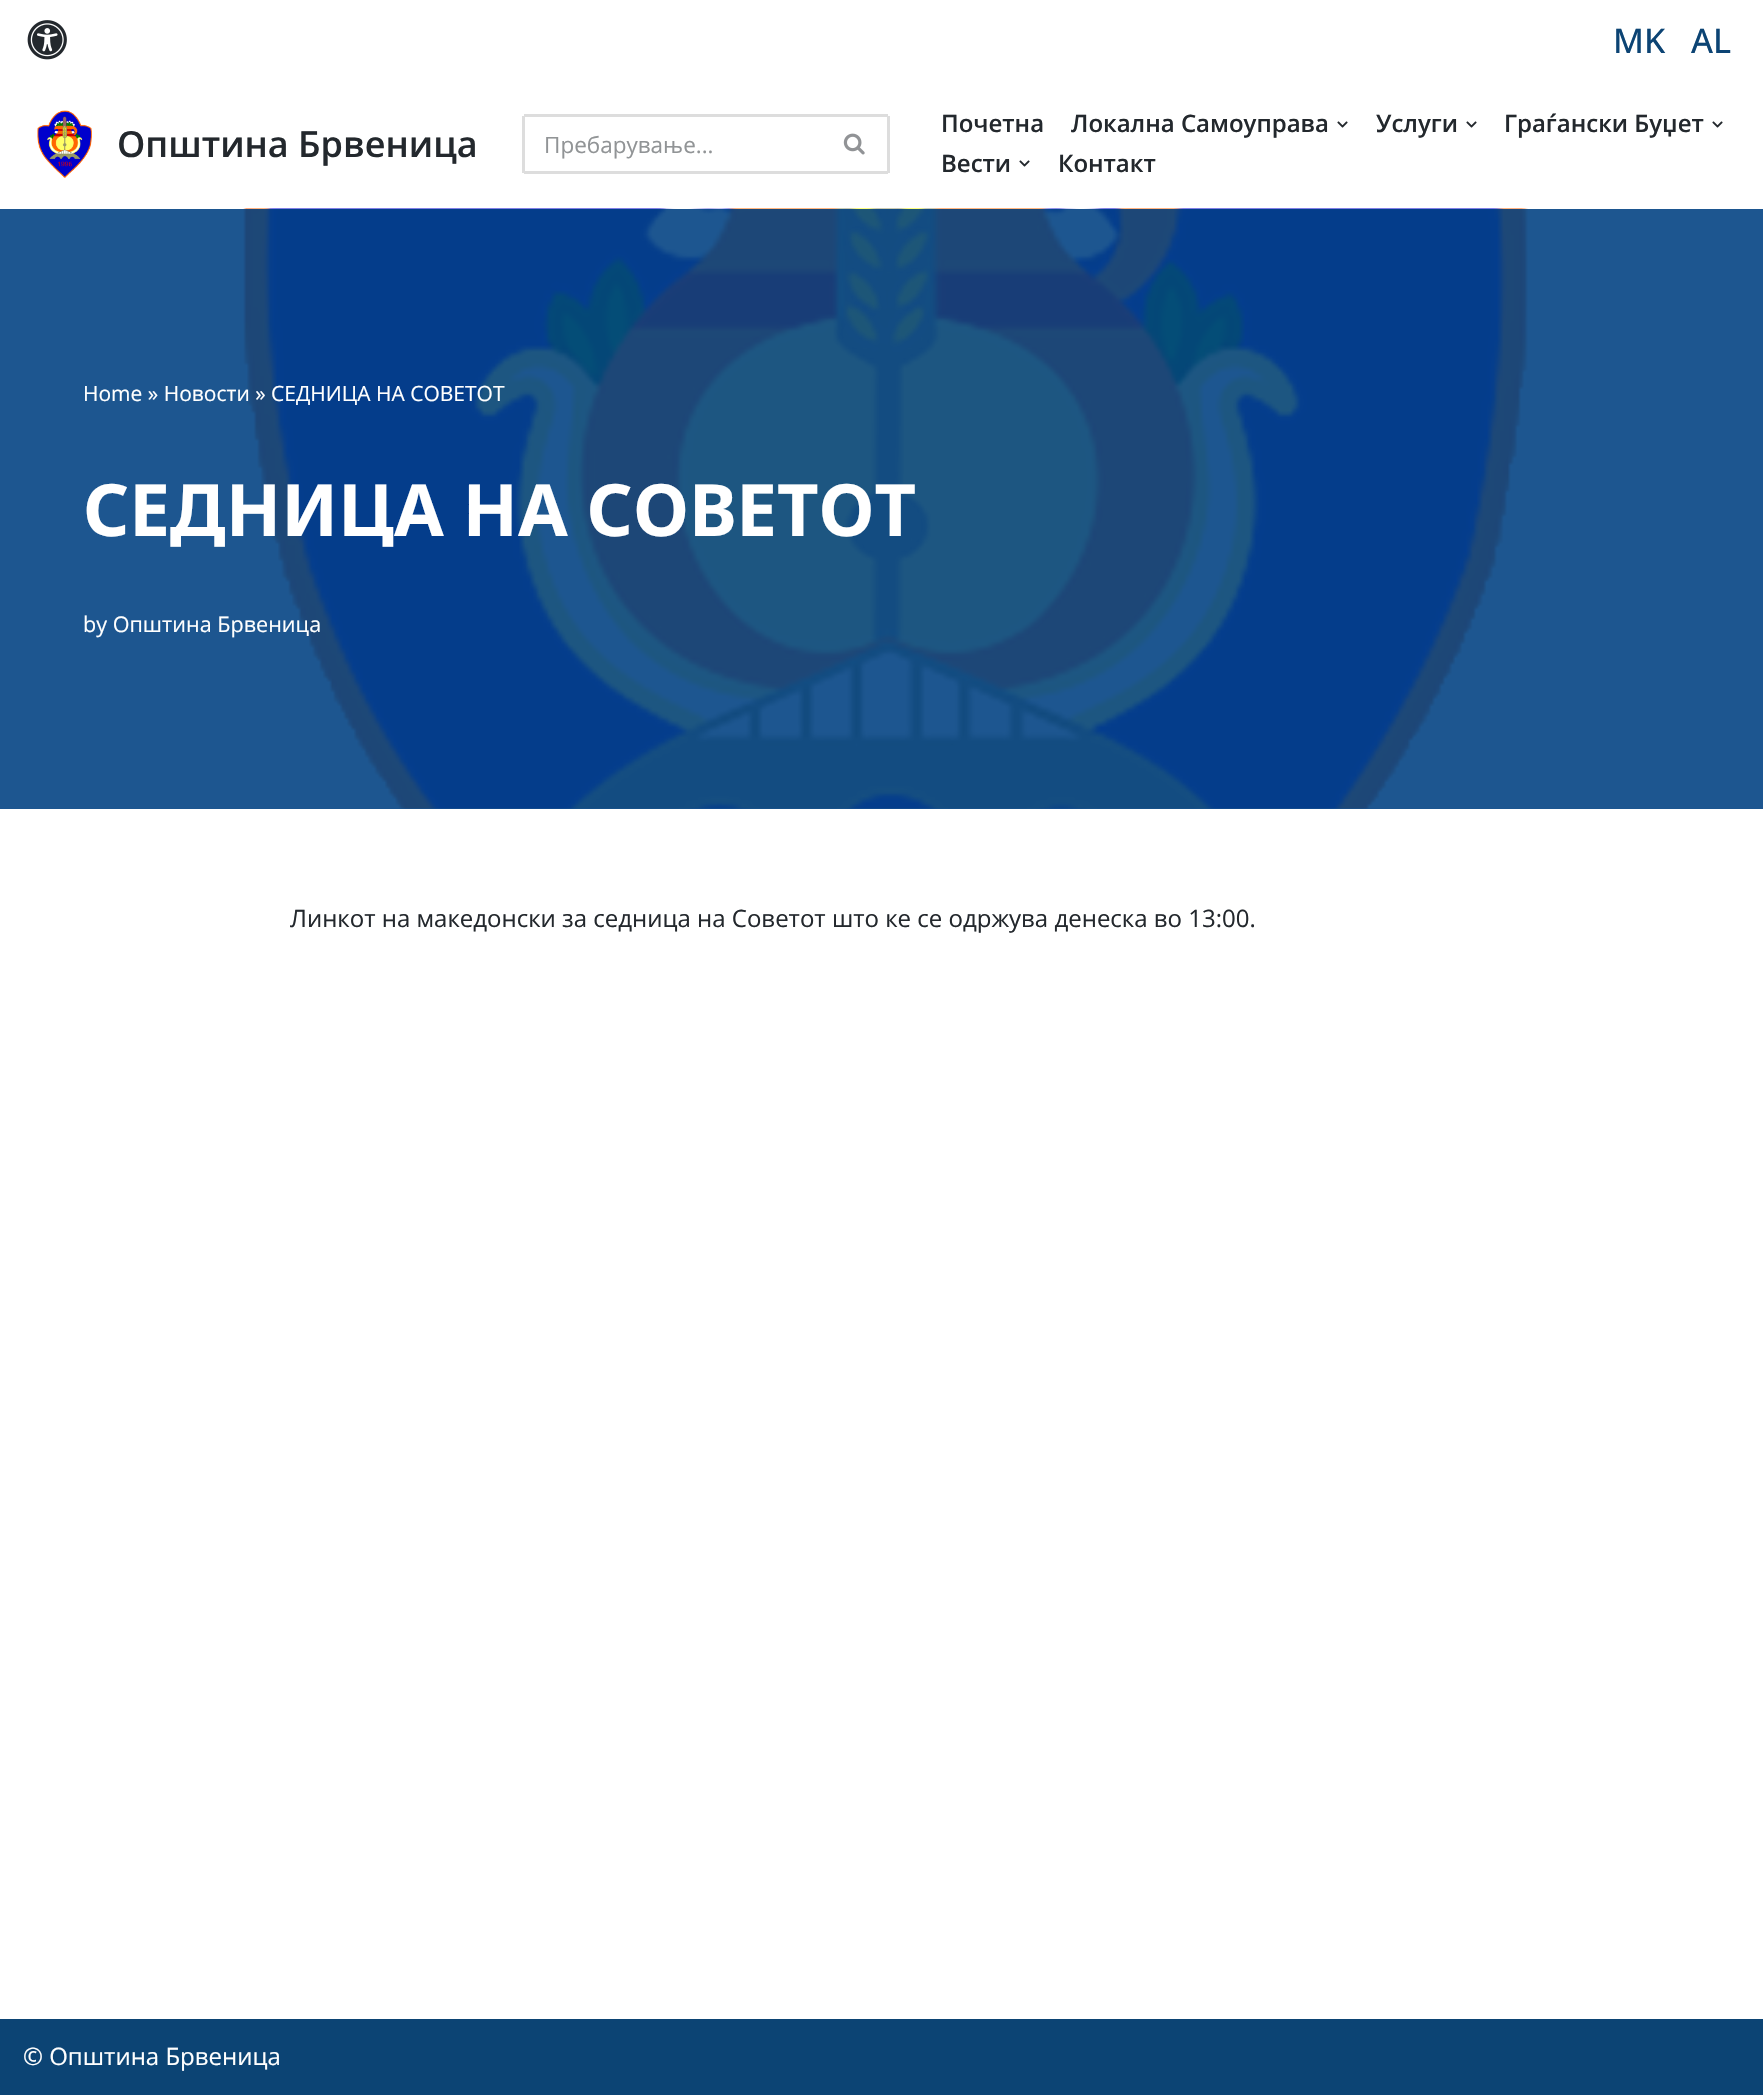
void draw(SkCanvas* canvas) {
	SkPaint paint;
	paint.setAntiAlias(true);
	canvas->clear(0xffffffff);
	canvas->drawImageRect(SkImages::DeferredFromEncodedData(SkData::MakeFromFileName("img1.png")), SkRect::MakeXYWH(27, 20, 40, 40), SkSamplingOptions());
	SkFont f1(fontMgr->matchFamilyStyle("Open Sans", SkFontStyle(500, SkFontStyle::kNormal_Width, SkFontStyle::kUpright_Slant)), 34);
	f1.setSubpixel(true);
	paint.setColor(0xff0c4474);
	canvas->drawString("MK", 1613, 53, f1, paint);
	canvas->drawString("AL", 1691, 53, f1, paint);
	canvas->drawImageRect(SkImages::DeferredFromEncodedData(SkData::MakeFromFileName("img2.png")), SkRect::MakeXYWH(37, 110, 55, 68), SkSamplingOptions());
	SkFont f2(fontMgr->matchFamilyStyle("Open Sans", SkFontStyle(600, SkFontStyle::kNormal_Width, SkFontStyle::kUpright_Slant)), 36);
	f2.setSubpixel(true);
	paint.setColor(0xff23282d);
	canvas->drawString("Општина Брвеница", 117, 157, f2, paint);
	paint.setColor(0xffdddddd);
	canvas->drawRect(SkRect::MakeXYWH(524, 114, 364, 3), paint);
	canvas->drawRect(SkRect::MakeXYWH(524, 171, 298, 3), paint);
	canvas->drawRect(SkRect::MakeXYWH(522, 116, 3, 57), paint);
	SkFont f3(fontMgr->matchFamilyStyle("Open Sans", SkFontStyle::Normal()), 22.5);
	f3.setSubpixel(true);
	paint.setColor(0xff919496);
	canvas->drawString("Пребарување...", 544, 153, f3, paint);
	paint.setColor(0xffdddddd);
	canvas->drawRect(SkRect::MakeXYWH(887, 116, 3, 57), paint);
	canvas->drawRect(SkRect::MakeXYWH(822, 171, 66, 3), paint);
	canvas->drawImageRect(SkImages::DeferredFromEncodedData(SkData::MakeFromFileName("img3.png")), SkRect::MakeXYWH(843, 133, 22, 22), SkSamplingOptions());
	SkFont f4(fontMgr->matchFamilyStyle("Open Sans", SkFontStyle(600, SkFontStyle::kNormal_Width, SkFontStyle::kUpright_Slant)), 24);
	f4.setSubpixel(true);
	paint.setColor(0xff23282d);
	canvas->drawString("Почетна", 941, 132, f4, paint);
	canvas->drawString("Локална Самоуправа", 1071, 132, f4, paint);
	canvas->drawImageRect(SkImages::DeferredFromEncodedData(SkData::MakeFromFileName("img4.png")), SkRect::MakeXYWH(1337, 121, 11, 7), SkSamplingOptions());
	canvas->drawString("Услуги", 1376, 132, f4, paint);
	canvas->drawImageRect(SkImages::DeferredFromEncodedData(SkData::MakeFromFileName("img4.png")), SkRect::MakeXYWH(1466, 121, 11, 7), SkSamplingOptions());
	canvas->drawString("Граѓански Буџет", 1504, 132, f4, paint);
	canvas->drawImageRect(SkImages::DeferredFromEncodedData(SkData::MakeFromFileName("img4.png")), SkRect::MakeXYWH(1712, 121, 11, 7), SkSamplingOptions());
	canvas->drawString("Вести", 941, 172, f4, paint);
	canvas->drawImageRect(SkImages::DeferredFromEncodedData(SkData::MakeFromFileName("img4.png")), SkRect::MakeXYWH(1019, 160, 11, 7), SkSamplingOptions());
	canvas->drawString("Контакт", 1058, 172, f4, paint);
	canvas->drawImageRect(SkImages::DeferredFromEncodedData(SkData::MakeFromFileName("img5.png")), SkRect::MakeXYWH(243, 208, 1285, 601), SkSamplingOptions());
	paint.setColor(0xe6044484);
	canvas->drawRect(SkRect::MakeXYWH(0, 209, 1763, 600), paint);
	SkFont f5(fontMgr->matchFamilyStyle("Open Sans", SkFontStyle::Normal()), 21);
	f5.setSubpixel(true);
	paint.setColor(0xffffffff);
	canvas->drawString("Home » Новости » СЕДНИЦА НА СОВЕТОТ", 83, 401, f5, paint);
	SkFont f6(fontMgr->matchFamilyStyle("Noto Sans", SkFontStyle::Bold()), 72);
	f6.setSubpixel(true);
	canvas->drawString("СЕДНИЦА НА СОВЕТОТ", 83, 536, f6, paint);
	SkFont f7(fontMgr->matchFamilyStyle("Open Sans", SkFontStyle::Normal()), 21.6);
	f7.setSubpixel(true);
	canvas->drawString("by Општина Брвеница", 83, 632, f7, paint);
	SkFont f8(fontMgr->matchFamilyStyle("Open Sans", SkFontStyle::Normal()), 24);
	f8.setSubpixel(true);
	paint.setColor(0xff23282d);
	canvas->drawString("Линкот на македонски за седница на Советот што ке се одржува денеска во 13:00.", 290, 927, f8, paint);
	paint.setColor(0xff0c4474);
	canvas->drawRect(SkRect::MakeXYWH(0, 2019, 1763, 76), paint);
	paint.setColor(0xffffffff);
	canvas->drawString("© Општина Брвеница", 23, 2065, f8, paint);
}
